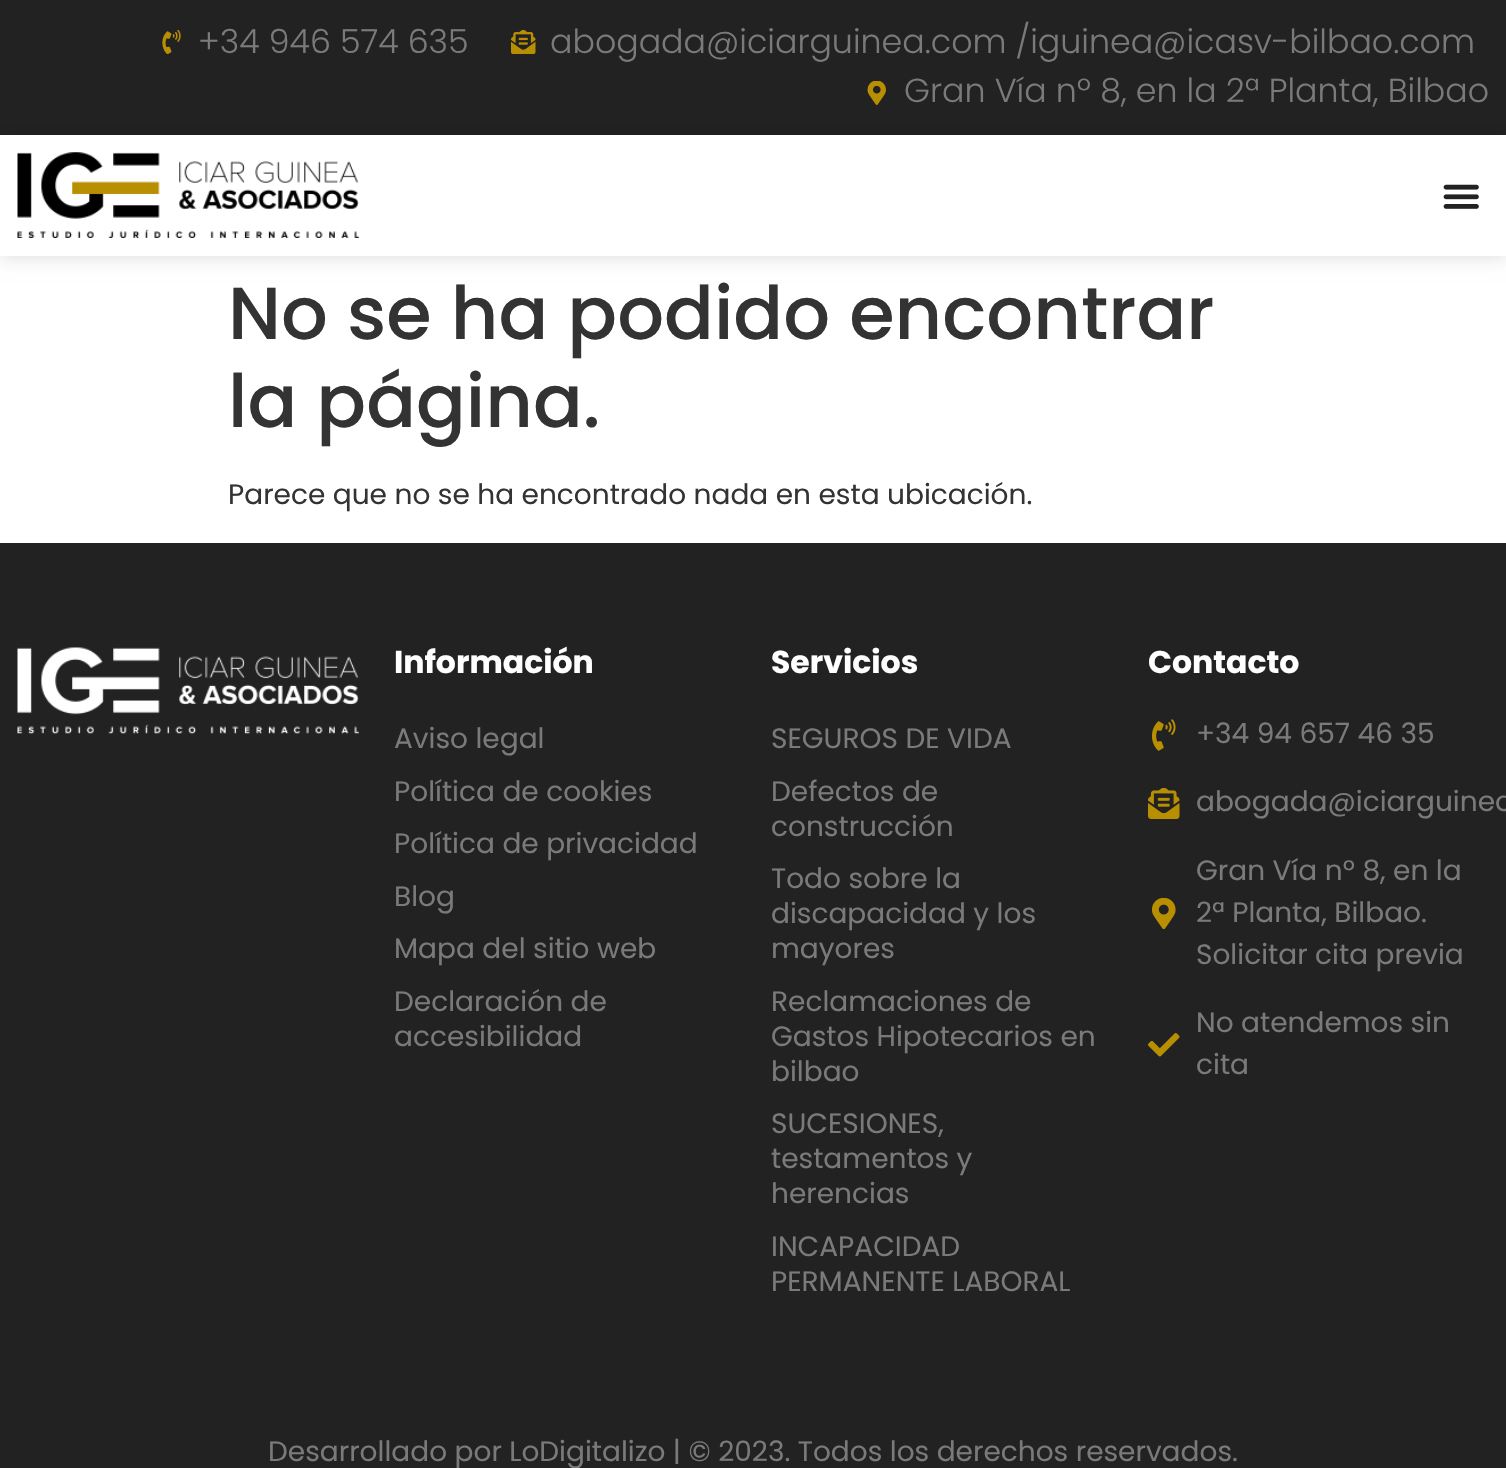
void draw(SkCanvas* canvas) {
	SkPaint paint;
	paint.setAntiAlias(true);
	canvas->clear(0xffffffff);
	paint.setColor(0xff222222);
	canvas->drawRect(SkRect::MakeXYWH(0, 0, 1506, 135), paint);
	canvas->drawImageRect(SkImages::DeferredFromEncodedData(SkData::MakeFromFileName("img1.png")), SkRect::MakeXYWH(162, 30, 19, 24), SkSamplingOptions());
	SkFont f1(fontMgr->matchFamilyStyle("Poppins", SkFontStyle(300, SkFontStyle::kNormal_Width, SkFontStyle::kUpright_Slant)), 33.25);
	f1.setSubpixel(true);
	paint.setColor(0xff7a7a7a);
	canvas->drawString("+34 946 574 635", 198, 53, f1, paint);
	canvas->drawImageRect(SkImages::DeferredFromEncodedData(SkData::MakeFromFileName("img2.png")), SkRect::MakeXYWH(511, 30, 25, 24), SkSamplingOptions());
	canvas->drawString("abogada@iciarguinea.com /iguinea@icasv-bilbao.com", 550, 53, f1, paint);
	canvas->drawImageRect(SkImages::DeferredFromEncodedData(SkData::MakeFromFileName("img3.png")), SkRect::MakeXYWH(867, 81, 19, 24), SkSamplingOptions());
	canvas->drawString("Gran Vía nº 8, en la 2ª Planta, Bilbao", 904, 102, f1, paint);
	paint.setColor(0x26000000);
	paint.setMaskFilter(SkMaskFilter::MakeBlur(kNormal_SkBlurStyle, 9));
	canvas->drawRect(SkRect::MakeXYWH(0, 135, 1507, 121), paint);
	paint.setMaskFilter(nullptr);
	paint.setColor(0xffffffff);
	canvas->drawRect(SkRect::MakeXYWH(0, 135, 1506, 121), paint);
	canvas->drawImageRect(SkImages::DeferredFromEncodedData(SkData::MakeFromFileName("img4.png")), SkRect::MakeXYWH(17, 152, 342, 86), SkSamplingOptions());
	canvas->drawImageRect(SkImages::DeferredFromEncodedData(SkData::MakeFromFileName("img5.png")), SkRect::MakeXYWH(1443, 184, 36, 25), SkSamplingOptions());
	SkFont f2(fontMgr->matchFamilyStyle("Poppins", SkFontStyle(500, SkFontStyle::kNormal_Width, SkFontStyle::kUpright_Slant)), 73.5);
	f2.setSubpixel(true);
	paint.setColor(0xff333333);
	canvas->drawString("No se ha podido encontrar", 228, 339, f2, paint);
	canvas->drawString("la página.", 228, 427, f2, paint);
	SkFont f3(fontMgr->matchFamilyStyle("Poppins", SkFontStyle::Normal()), 28);
	f3.setSubpixel(true);
	canvas->drawString("Parece que no se ha encontrado nada en esta ubicación.", 228, 504, f3, paint);
	paint.setColor(0xff222222);
	canvas->drawRect(SkRect::MakeXYWH(0, 543, 1506, 925), paint);
	canvas->drawImageRect(SkImages::DeferredFromEncodedData(SkData::MakeFromFileName("img6.png")), SkRect::MakeXYWH(17, 647, 342, 87), SkSamplingOptions());
	SkFont f4(fontMgr->matchFamilyStyle("Poppins", SkFontStyle::Bold()), 31.5);
	f4.setSubpixel(true);
	paint.setColor(0xffffffff);
	canvas->drawString("Información", 394, 673, f4, paint);
	paint.setColor(0xff7a7a7a);
	canvas->drawString("Aviso legal", 394, 748, f3, paint);
	canvas->drawString("Política de cookies", 394, 801, f3, paint);
	canvas->drawString("Política de privacidad", 394, 853, f3, paint);
	canvas->drawString("Blog", 394, 906, f3, paint);
	canvas->drawString("Mapa del sitio web", 394, 958, f3, paint);
	canvas->drawString("Declaración de", 394, 1011, f3, paint);
	canvas->drawString("accesibilidad", 394, 1046, f3, paint);
	paint.setColor(0xffffffff);
	canvas->drawString("Servicios", 771, 673, f4, paint);
	paint.setColor(0xff7a7a7a);
	canvas->drawString("SEGUROS DE VIDA", 771, 748, f3, paint);
	canvas->drawString("Defectos de", 771, 801, f3, paint);
	canvas->drawString("construcción", 771, 836, f3, paint);
	canvas->drawString("Todo sobre la", 771, 888, f3, paint);
	canvas->drawString("discapacidad y los", 771, 923, f3, paint);
	canvas->drawString("mayores", 771, 958, f3, paint);
	canvas->drawString("Reclamaciones de", 771, 1011, f3, paint);
	canvas->drawString("Gastos Hipotecarios en", 771, 1046, f3, paint);
	canvas->drawString("bilbao", 771, 1081, f3, paint);
	canvas->drawString("SUCESIONES,", 771, 1133, f3, paint);
	canvas->drawString("testamentos y", 771, 1168, f3, paint);
	canvas->drawString("herencias", 771, 1203, f3, paint);
	canvas->drawString("INCAPACIDAD", 771, 1256, f3, paint);
	canvas->drawString("PERMANENTE LABORAL", 771, 1291, f3, paint);
	paint.setColor(0xffffffff);
	canvas->drawString("Contacto", 1148, 673, f4, paint);
	canvas->drawImageRect(SkImages::DeferredFromEncodedData(SkData::MakeFromFileName("img7.png")), SkRect::MakeXYWH(1151, 719, 25, 32), SkSamplingOptions());
	paint.setColor(0xff7a7a7a);
	canvas->drawString("+34 94 657 46 35", 1196, 743, f3, paint);
	canvas->drawImageRect(SkImages::DeferredFromEncodedData(SkData::MakeFromFileName("img8.png")), SkRect::MakeXYWH(1148, 788, 32, 31), SkSamplingOptions());
	canvas->drawString("abogada@iciarguinea", 1196, 811, f3, paint);
	canvas->drawImageRect(SkImages::DeferredFromEncodedData(SkData::MakeFromFileName("img9.png")), SkRect::MakeXYWH(1151, 898, 25, 31), SkSamplingOptions());
	canvas->drawString("Gran Vía nº 8, en la", 1196, 880, f3, paint);
	canvas->drawString("2ª Planta, Bilbao.", 1196, 922, f3, paint);
	canvas->drawString("Solicitar cita previa", 1196, 964, f3, paint);
	canvas->drawImageRect(SkImages::DeferredFromEncodedData(SkData::MakeFromFileName("img10.png")), SkRect::MakeXYWH(1148, 1033, 32, 24), SkSamplingOptions());
	canvas->drawString("No atendemos sin", 1196, 1032, f3, paint);
	canvas->drawString("cita", 1196, 1074, f3, paint);
	canvas->drawString("Desarrollado por LoDigitalizo | © 2023. Todos los derechos reservados.", 268, 1461, f3, paint);
}
